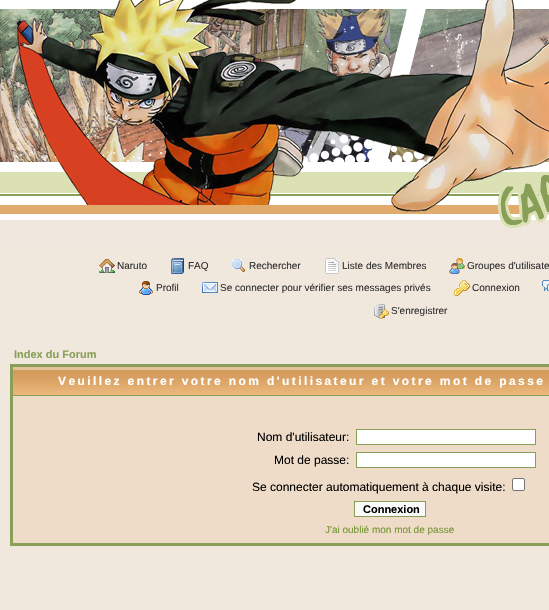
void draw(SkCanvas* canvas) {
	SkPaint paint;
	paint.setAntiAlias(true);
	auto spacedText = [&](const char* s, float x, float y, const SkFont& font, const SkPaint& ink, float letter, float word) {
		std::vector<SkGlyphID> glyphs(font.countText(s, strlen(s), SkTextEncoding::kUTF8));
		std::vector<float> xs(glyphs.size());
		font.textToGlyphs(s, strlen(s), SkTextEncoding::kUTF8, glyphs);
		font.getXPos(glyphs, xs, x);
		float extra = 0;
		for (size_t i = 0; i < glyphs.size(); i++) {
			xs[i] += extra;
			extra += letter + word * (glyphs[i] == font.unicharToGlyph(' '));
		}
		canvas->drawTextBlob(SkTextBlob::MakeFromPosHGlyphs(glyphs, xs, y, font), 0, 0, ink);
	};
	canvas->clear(0xfff0e7dd);
	canvas->drawImageRect(SkImages::DeferredFromEncodedData(SkData::MakeFromFileName("img1.png")), SkRect::MakeXYWH(0, 0, 549, 246), SkSamplingOptions());
	canvas->drawImageRect(SkImages::DeferredFromEncodedData(SkData::MakeFromFileName("img2.png")), SkRect::MakeXYWH(99, 259, 16, 14), SkSamplingOptions());
	SkFont f1(fontMgr->matchFamilyStyle("Liberation Sans", SkFontStyle::Normal()), 10);
	f1.setSubpixel(true);
	paint.setColor(0xff313131);
	canvas->drawString("Naruto", 117, 269, f1, paint);
	canvas->drawImageRect(SkImages::DeferredFromEncodedData(SkData::MakeFromFileName("img3.png")), SkRect::MakeXYWH(171, 258, 13, 16), SkSamplingOptions());
	canvas->drawString("FAQ", 188, 269, f1, paint);
	canvas->drawImageRect(SkImages::DeferredFromEncodedData(SkData::MakeFromFileName("img4.png")), SkRect::MakeXYWH(232, 259, 13, 14), SkSamplingOptions());
	canvas->drawString("Rechercher", 249, 269, f1, paint);
	canvas->drawImageRect(SkImages::DeferredFromEncodedData(SkData::MakeFromFileName("img5.png")), SkRect::MakeXYWH(325, 258, 14, 16), SkSamplingOptions());
	canvas->drawString("Liste des Membres", 342, 269, f1, paint);
	canvas->drawImageRect(SkImages::DeferredFromEncodedData(SkData::MakeFromFileName("img6.png")), SkRect::MakeXYWH(449, 258, 16, 16), SkSamplingOptions());
	canvas->drawString("Groupes d'utilisate", 467, 269, f1, paint);
	canvas->drawImageRect(SkImages::DeferredFromEncodedData(SkData::MakeFromFileName("img7.png")), SkRect::MakeXYWH(139, 281, 14, 14), SkSamplingOptions());
	canvas->drawString("Profil", 156, 291, f1, paint);
	canvas->drawImageRect(SkImages::DeferredFromEncodedData(SkData::MakeFromFileName("img8.png")), SkRect::MakeXYWH(202, 282, 16, 11), SkSamplingOptions());
	canvas->drawString("Se connecter pour vérifier ses messages privés", 220, 291, f1, paint);
	canvas->drawImageRect(SkImages::DeferredFromEncodedData(SkData::MakeFromFileName("img9.png")), SkRect::MakeXYWH(454, 280, 16, 16), SkSamplingOptions());
	canvas->drawString("Connexion", 472, 291, f1, paint);
	canvas->drawImageRect(SkImages::DeferredFromEncodedData(SkData::MakeFromFileName("img10.png")), SkRect::MakeXYWH(542, 280, 7, 11), SkSamplingOptions());
	canvas->drawImageRect(SkImages::DeferredFromEncodedData(SkData::MakeFromFileName("img11.png")), SkRect::MakeXYWH(374, 304, 15, 15), SkSamplingOptions());
	canvas->drawString("S'enregistrer", 391, 314, f1, paint);
	SkFont f2(fontMgr->matchFamilyStyle("Liberation Sans", SkFontStyle::Bold()), 11);
	f2.setSubpixel(true);
	paint.setColor(0xff889f57);
	canvas->drawString("Index du Forum", 14, 358, f2, paint);
	canvas->drawRect(SkRect::MakeXYWH(10, 364, 539, 182), paint);
	canvas->drawImageRect(SkImages::DeferredFromEncodedData(SkData::MakeFromFileName("img12.png")), SkRect::MakeXYWH(13, 367, 536, 28), SkSamplingOptions());
	SkFont f3(fontMgr->matchFamilyStyle("Liberation Sans", SkFontStyle::Bold()), 12);
	f3.setSubpixel(true);
	paint.setColor(0xffffffff);
	spacedText("Veuillez entrer votre nom d'utilisateur et votre mot de passe", 58, 385, f3, paint, 2.4, 0);
	paint.setColor(0xffeedcc8);
	canvas->drawRect(SkRect::MakeXYWH(13, 396, 536, 147), paint);
	SkFont f4(fontMgr->matchFamilyStyle("Liberation Sans", SkFontStyle::Normal()), 12);
	f4.setSubpixel(true);
	paint.setColor(0xff000000);
	canvas->drawString("Nom d'utilisateur:", 257, 441, f4, paint);
	paint.setColor(0xffffffff);
	canvas->drawRect(SkRect::MakeXYWH(356.5, 429.5, 179, 15), paint);
	paint.setStroke(true);
	paint.setStrokeWidth(1);
	paint.setColor(0xff889f57);
	canvas->drawRect(SkRect::MakeXYWH(356.5, 429.5, 179, 15), paint);
	paint.setStroke(false);
	paint.setColor(0xff000000);
	canvas->drawString("Mot de passe:", 274, 464, f4, paint);
	paint.setColor(0xffffffff);
	canvas->drawRect(SkRect::MakeXYWH(356.5, 452.5, 179, 15), paint);
	paint.setStroke(true);
	paint.setColor(0xff889f57);
	canvas->drawRect(SkRect::MakeXYWH(356.5, 452.5, 179, 15), paint);
	paint.setStroke(false);
	paint.setColor(0xff000000);
	canvas->drawString("Se connecter automatiquement à chaque visite:", 252, 491, f4, paint);
	paint.setColor(0xffffffff);
	canvas->drawRoundRect(SkRect::MakeXYWH(512.5, 478.5, 12, 12), 1.5, 1.5, paint);
	paint.setStroke(true);
	paint.setColor(0xff767676);
	canvas->drawRoundRect(SkRect::MakeXYWH(512.5, 478.5, 12, 12), 1.5, 1.5, paint);
	paint.setStroke(false);
	paint.setColor(0xfffafafa);
	canvas->drawRect(SkRect::MakeXYWH(354.5, 501.5, 71, 15), paint);
	paint.setStroke(true);
	paint.setColor(0xff889f57);
	canvas->drawRect(SkRect::MakeXYWH(354.5, 501.5, 71, 15), paint);
	paint.setStroke(false);
	paint.setColor(0xff000000);
	canvas->drawString("Connexion", 363, 513, f2, paint);
	paint.setColor(0xff759432);
	canvas->drawString("J'ai oublié mon mot de passe", 325, 533, f1, paint);
}
